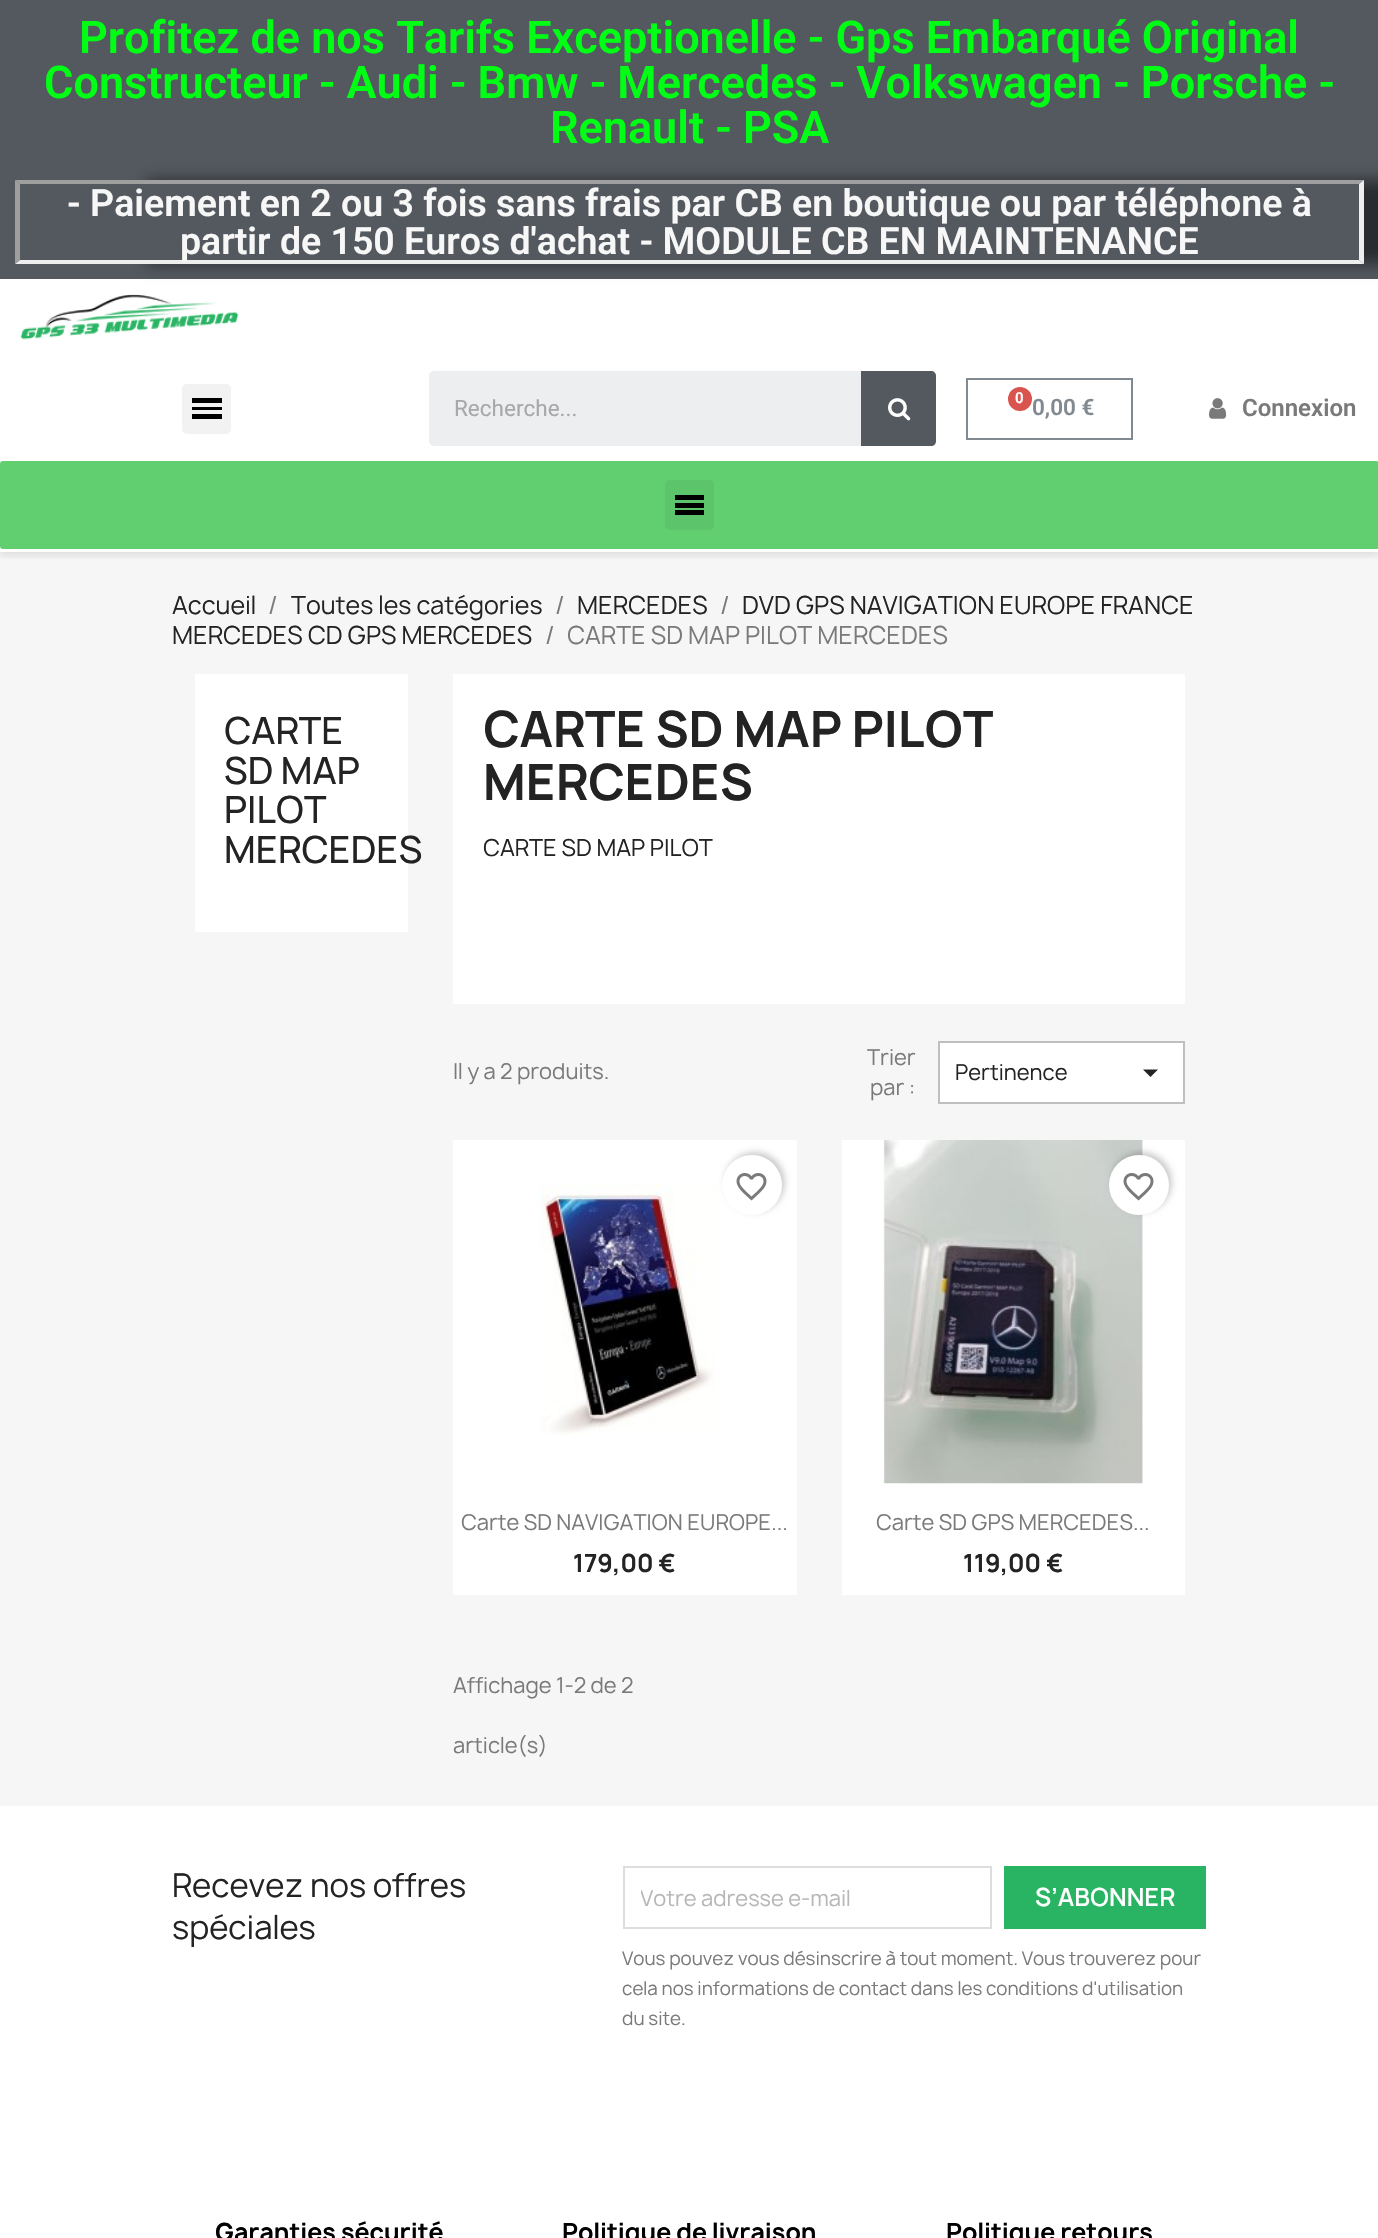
void draw(SkCanvas* canvas) {
	SkPaint paint;
	paint.setAntiAlias(true);
	auto svgPath = [&](const char* data, bool evenOdd = false) {
		SkPath result = *SkParsePath::FromSVGString(data);
		if (evenOdd) result.setFillType(SkPathFillType::kEvenOdd);
		return result;
	};
	canvas->clear(0xffffffff);
	paint.setColor(0xfff6f6f6);
	canvas->drawRect(SkRect::MakeXYWH(0, 552, 1378, 1254), paint);
	canvas->save();
	canvas->clipRect(SkRect::MakeXYWH(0, 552, 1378, 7));
	paint.setColor(0x1c000000);
	paint.setMaskFilter(SkMaskFilter::MakeBlur(kNormal_SkBlurStyle, 4));
	canvas->drawRect(SkRect::MakeXYWH(0, 3, 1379, 552), paint);
	paint.setMaskFilter(nullptr);
	canvas->restore();
	paint.setColor(0xff54595f);
	canvas->drawRect(SkRect::MakeXYWH(0, 0, 1378, 279), paint);
	SkFont f1(fontMgr->matchFamilyStyle("Roboto", SkFontStyle(600, SkFontStyle::kNormal_Width, SkFontStyle::kUpright_Slant)), 45);
	f1.setSubpixel(true);
	paint.setColor(0xff00ff15);
	canvas->drawString("Profitez de nos Tarifs Exceptionelle - Gps Embarqué Original", 79, 53, f1, paint);
	canvas->drawString("Constructeur - Audi - Bmw - Mercedes - Volkswagen - Porsche -", 44, 98, f1, paint);
	canvas->drawString("Renault - PSA", 550, 143, f1, paint);
	canvas->save();
	canvas->clipPath(svgPath("M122 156H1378V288H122ZM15 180H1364V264H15Z", true), true);
	paint.setColor(0x80000000);
	paint.setMaskFilter(SkMaskFilter::MakeBlur(kNormal_SkBlurStyle, 7.5));
	canvas->drawRect(SkRect::MakeXYWH(146, 180, 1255, 84), paint);
	paint.setMaskFilter(nullptr);
	canvas->restore();
	paint.setColor(0xff9f9f9f);
	canvas->drawPath(svgPath("M15 180H1364L1359 184H20Z"), paint);
	paint.setColor(0xffeeeeee);
	canvas->drawPath(svgPath("M1364 180V264L1359 260V184Z"), paint);
	canvas->drawPath(svgPath("M1364 264H15L20 260H1359Z"), paint);
	paint.setColor(0xff9f9f9f);
	canvas->drawPath(svgPath("M15 264V180L20 184V260Z"), paint);
	SkFont f2(fontMgr->matchFamilyStyle("Roboto", SkFontStyle(600, SkFontStyle::kNormal_Width, SkFontStyle::kUpright_Slant)), 37.5);
	f2.setSubpixel(true);
	paint.setColor(0xfff7f7f7);
	canvas->drawString("- Paiement en 2 ou 3 fois sans frais par CB en boutique ou par téléphone à", 67, 216, f2, paint);
	canvas->drawString("partir de 150 Euros d'achat - MODULE CB EN MAINTENANCE", 180, 254, f2, paint);
	canvas->drawImageRect(SkImages::DeferredFromEncodedData(SkData::MakeFromFileName("img1.png")), SkRect::MakeXYWH(20, 294, 219, 46), SkSamplingOptions());
	paint.setColor(0xfff2f2f2);
	canvas->drawRoundRect(SkRect::MakeXYWH(182, 384, 49, 50), 5, 5, paint);
	paint.setColor(0xff000000);
	canvas->drawRect(SkRect::MakeXYWH(192, 407, 30, 3), paint);
	canvas->drawRect(SkRect::MakeXYWH(192, 398, 30, 5), paint);
	canvas->drawRect(SkRect::MakeXYWH(192, 414, 30, 5), paint);
	paint.setColor(0xffeceeef);
	canvas->drawRoundRect(SkRect::MakeXYWH(429, 371, 507, 75), 5, 5, paint);
	SkFont f3(fontMgr->matchFamilyStyle("Roboto", SkFontStyle::Normal()), 22.5);
	f3.setSubpixel(true);
	paint.setColor(0xffa8a8a9);
	canvas->drawString("Recherche...", 454, 416, f3, paint);
	paint.setColor(0xff54595f);
	canvas->drawPath(svgPath("M861 371H931C934 371 936 373 936 376V441C936 444 934 446 931 446H861Z"), paint);
	canvas->drawImageRect(SkImages::DeferredFromEncodedData(SkData::MakeFromFileName("img2.png")), SkRect::MakeXYWH(888, 398, 23, 23), SkSamplingOptions());
	paint.setStroke(true);
	paint.setStrokeWidth(2);
	paint.setColor(0xff818a91);
	canvas->drawRect(SkRect::MakeXYWH(967, 379, 165, 60), paint);
	paint.setStroke(false);
	paint.setColor(0xffd9534f);
	canvas->drawCircle(1020, 399, 12, paint);
	SkFont f4(fontMgr->matchFamilyStyle("Roboto", SkFontStyle(600, SkFontStyle::kNormal_Width, SkFontStyle::kUpright_Slant)), 15);
	f4.setSubpixel(true);
	paint.setColor(0xffffffff);
	canvas->drawString("0", 1015, 403, f4, paint);
	SkFont f5(fontMgr->matchFamilyStyle("Roboto", SkFontStyle(600, SkFontStyle::kNormal_Width, SkFontStyle::kUpright_Slant)), 22.5);
	f5.setSubpixel(true);
	paint.setColor(0xff818a91);
	canvas->drawString("0,00 €", 1032, 415, f5, paint);
	canvas->drawImageRect(SkImages::DeferredFromEncodedData(SkData::MakeFromFileName("img3.png")), SkRect::MakeXYWH(1209, 398, 18, 21), SkSamplingOptions());
	SkFont f6(fontMgr->matchFamilyStyle("Roboto", SkFontStyle(600, SkFontStyle::kNormal_Width, SkFontStyle::kUpright_Slant)), 24);
	f6.setSubpixel(true);
	paint.setColor(0xff7a7a7a);
	canvas->drawString("Connexion", 1242, 416, f6, paint);
	paint.setColor(0xff61ce70);
	canvas->drawRoundRect(SkRect::MakeXYWH(2.5, 463.5, 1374, 83), 0.5, 0.5, paint);
	paint.setStroke(true);
	paint.setStrokeWidth(5);
	canvas->drawRoundRect(SkRect::MakeXYWH(2.5, 463.5, 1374, 83), 0.5, 0.5, paint);
	paint.setStroke(false);
	paint.setColor(0xff5cc46a);
	canvas->drawRoundRect(SkRect::MakeXYWH(665, 480, 49, 50), 5, 5, paint);
	paint.setColor(0xff000000);
	canvas->drawRect(SkRect::MakeXYWH(675, 503, 29, 5), paint);
	canvas->drawRect(SkRect::MakeXYWH(675, 495, 29, 5), paint);
	canvas->drawRect(SkRect::MakeXYWH(675, 510, 29, 5), paint);
	SkFont f7(fontMgr->matchFamilyStyle("Manrope", SkFontStyle::Normal()), 24);
	f7.setSubpixel(true);
	paint.setColor(0xff232323);
	canvas->drawString("Accueil", 172, 614, f7, paint);
	paint.setColor(0xff7a7a7a);
	canvas->drawString("/", 268, 614, f7, paint);
	paint.setColor(0xff232323);
	canvas->drawString("Toutes les catégories", 291, 614, f7, paint);
	paint.setColor(0xff7a7a7a);
	canvas->drawString("/", 555, 614, f7, paint);
	paint.setColor(0xff232323);
	canvas->drawString("MERCEDES", 577, 614, f7, paint);
	paint.setColor(0xff7a7a7a);
	canvas->drawString("/", 720, 614, f7, paint);
	paint.setColor(0xff232323);
	canvas->drawString("DVD GPS NAVIGATION EUROPE FRANCE", 742, 614, f7, paint);
	canvas->drawString("MERCEDES CD GPS MERCEDES", 172, 644, f7, paint);
	paint.setColor(0xff7a7a7a);
	canvas->drawString("/", 545, 644, f7, paint);
	canvas->drawString("CARTE SD MAP PILOT MERCEDES", 567, 644, f7, paint);
	paint.setColor(0xffffffff);
	canvas->drawRect(SkRect::MakeXYWH(195, 674, 213, 258), paint);
	SkFont f8(fontMgr->matchFamilyStyle("Manrope", SkFontStyle(500, SkFontStyle::kNormal_Width, SkFontStyle::kUpright_Slant)), 36);
	f8.setSubpixel(true);
	paint.setColor(0xff232323);
	canvas->drawString("CARTE", 224, 744, f8, paint);
	canvas->drawString("SD MAP", 224, 784, f8, paint);
	canvas->drawString("PILOT", 224, 823, f8, paint);
	canvas->drawString("MERCEDES", 224, 863, f8, paint);
	paint.setColor(0xffffffff);
	canvas->drawRect(SkRect::MakeXYWH(453, 674, 732, 330), paint);
	SkFont f9(fontMgr->matchFamilyStyle("Manrope", SkFontStyle::Bold()), 48);
	f9.setSubpixel(true);
	paint.setColor(0xff232323);
	canvas->drawString("CARTE SD MAP PILOT", 483, 747, f9, paint);
	canvas->drawString("MERCEDES", 483, 800, f9, paint);
	SkFont f10(fontMgr->matchFamilyStyle("Manrope", SkFontStyle::Normal()), 22.5);
	f10.setSubpixel(true);
	canvas->drawString("CARTE SD MAP PILOT", 483, 856, f10, paint);
	SkFont f11(fontMgr->matchFamilyStyle("Manrope", SkFontStyle::Normal()), 21);
	f11.setSubpixel(true);
	paint.setColor(0xff7a7a7a);
	canvas->drawString("Il y a 2 produits.", 453, 1079, f11, paint);
	canvas->drawString("Trier", 867, 1065, f11, paint);
	canvas->drawString("par :", 870, 1095, f11, paint);
	paint.setColor(0xffffffff);
	canvas->drawRect(SkRect::MakeXYWH(939, 1042, 245, 61), paint);
	paint.setStroke(true);
	paint.setStrokeWidth(2);
	paint.setColor(0xffbfbfbf);
	canvas->drawRect(SkRect::MakeXYWH(939, 1042, 245, 61), paint);
	paint.setStroke(false);
	paint.setColor(0xff232323);
	canvas->drawString("Pertinence", 955, 1080, f11, paint);
	canvas->drawPath(svgPath("M1143 1069.5H1158L1150.5 1077Z"), paint);
	paint.setColor(0xffffffff);
	canvas->drawRect(SkRect::MakeXYWH(453, 1140, 344, 455), paint);
	canvas->drawImageRect(SkImages::DeferredFromEncodedData(SkData::MakeFromFileName("img4.png")), SkRect::MakeXYWH(540, 1183, 176, 252), SkSamplingOptions());
	paint.setColor(0x33000000);
	paint.setMaskFilter(SkMaskFilter::MakeBlur(kNormal_SkBlurStyle, 3));
	canvas->drawRoundRect(SkRect::MakeXYWH(725, 1152, 60, 60), 30, 30, paint);
	paint.setMaskFilter(nullptr);
	paint.setColor(0xffffffff);
	canvas->drawCircle(752, 1185, 30, paint);
	canvas->drawImageRect(SkImages::DeferredFromEncodedData(SkData::MakeFromFileName("img5.png")), SkRect::MakeXYWH(736, 1173, 31, 28), SkSamplingOptions());
	paint.setColor(0xff7a7a7a);
	canvas->drawString("Carte SD NAVIGATION EUROPE...", 461, 1530, f11, paint);
	SkFont f12(fontMgr->matchFamilyStyle("Manrope", SkFontStyle::Bold()), 24);
	f12.setSubpixel(true);
	paint.setColor(0xff232323);
	canvas->drawString("179,00 €", 573, 1572, f12, paint);
	paint.setColor(0xffffffff);
	canvas->drawRect(SkRect::MakeXYWH(842, 1140, 343, 455), paint);
	canvas->drawImageRect(SkImages::DeferredFromEncodedData(SkData::MakeFromFileName("img6.png")), SkRect::MakeXYWH(883, 1140, 260, 344), SkSamplingOptions());
	paint.setColor(0x33000000);
	paint.setMaskFilter(SkMaskFilter::MakeBlur(kNormal_SkBlurStyle, 3));
	canvas->drawRoundRect(SkRect::MakeXYWH(1112, 1152, 60, 60), 30, 30, paint);
	paint.setMaskFilter(nullptr);
	paint.setColor(0xffffffff);
	canvas->drawCircle(1139, 1185, 30, paint);
	canvas->drawImageRect(SkImages::DeferredFromEncodedData(SkData::MakeFromFileName("img5.png")), SkRect::MakeXYWH(1123, 1173, 31, 28), SkSamplingOptions());
	paint.setColor(0xff7a7a7a);
	canvas->drawString("Carte SD GPS MERCEDES...", 876, 1530, f11, paint);
	paint.setColor(0xff232323);
	canvas->drawString("119,00 €", 963, 1572, f12, paint);
	paint.setColor(0xff7a7a7a);
	canvas->drawString("Affichage 1-2 de 2", 453, 1693, f11, paint);
	canvas->drawString("article(s)", 453, 1753, f11, paint);
	SkFont f13(fontMgr->matchFamilyStyle("Manrope", SkFontStyle::Normal()), 31.5);
	f13.setSubpixel(true);
	paint.setColor(0xff232323);
	canvas->drawString("Recevez nos offres", 172, 1897, f13, paint);
	canvas->drawString("spéciales", 172, 1939, f13, paint);
	paint.setStroke(true);
	paint.setColor(0xffdddddd);
	canvas->drawRect(SkRect::MakeXYWH(624, 1867, 367, 61), paint);
	canvas->save();
	canvas->clipRect(SkRect::MakeXYWH(641, 1880, 333, 34));
	paint.setStroke(false);
	paint.setColor(0xffb7b7b7);
	canvas->drawString("Votre adresse e-mail", 640, 1906, f11, paint);
	canvas->restore();
	paint.setColor(0xff28b463);
	canvas->drawRect(SkRect::MakeXYWH(1004, 1866, 202, 63), paint);
	SkFont f14(fontMgr->matchFamilyStyle("Manrope", SkFontStyle(600, SkFontStyle::kNormal_Width, SkFontStyle::kUpright_Slant)), 24);
	f14.setSubpixel(true);
	paint.setColor(0xffffffff);
	canvas->drawString("S’ABONNER", 1035, 1906, f14, paint);
	SkFont f15(fontMgr->matchFamilyStyle("Manrope", SkFontStyle::Normal()), 18);
	f15.setSubpixel(true);
	paint.setColor(0xff7a7a7a);
	canvas->drawString("Vous pouvez vous désinscrire à tout moment. Vous trouverez pour", 622, 1965, f15, paint);
	canvas->drawString("cela nos informations de contact dans les conditions d'utilisation", 622, 1995, f15, paint);
	canvas->drawString("du site.", 622, 2025, f15, paint);
	paint.setColor(0xff000000);
	canvas->drawString("Garanties sécurité", 215, 2241, f12, paint);
	canvas->drawString("Politique de livraison", 562, 2241, f12, paint);
	canvas->drawString("Politique retours", 946, 2241, f12, paint);
}
